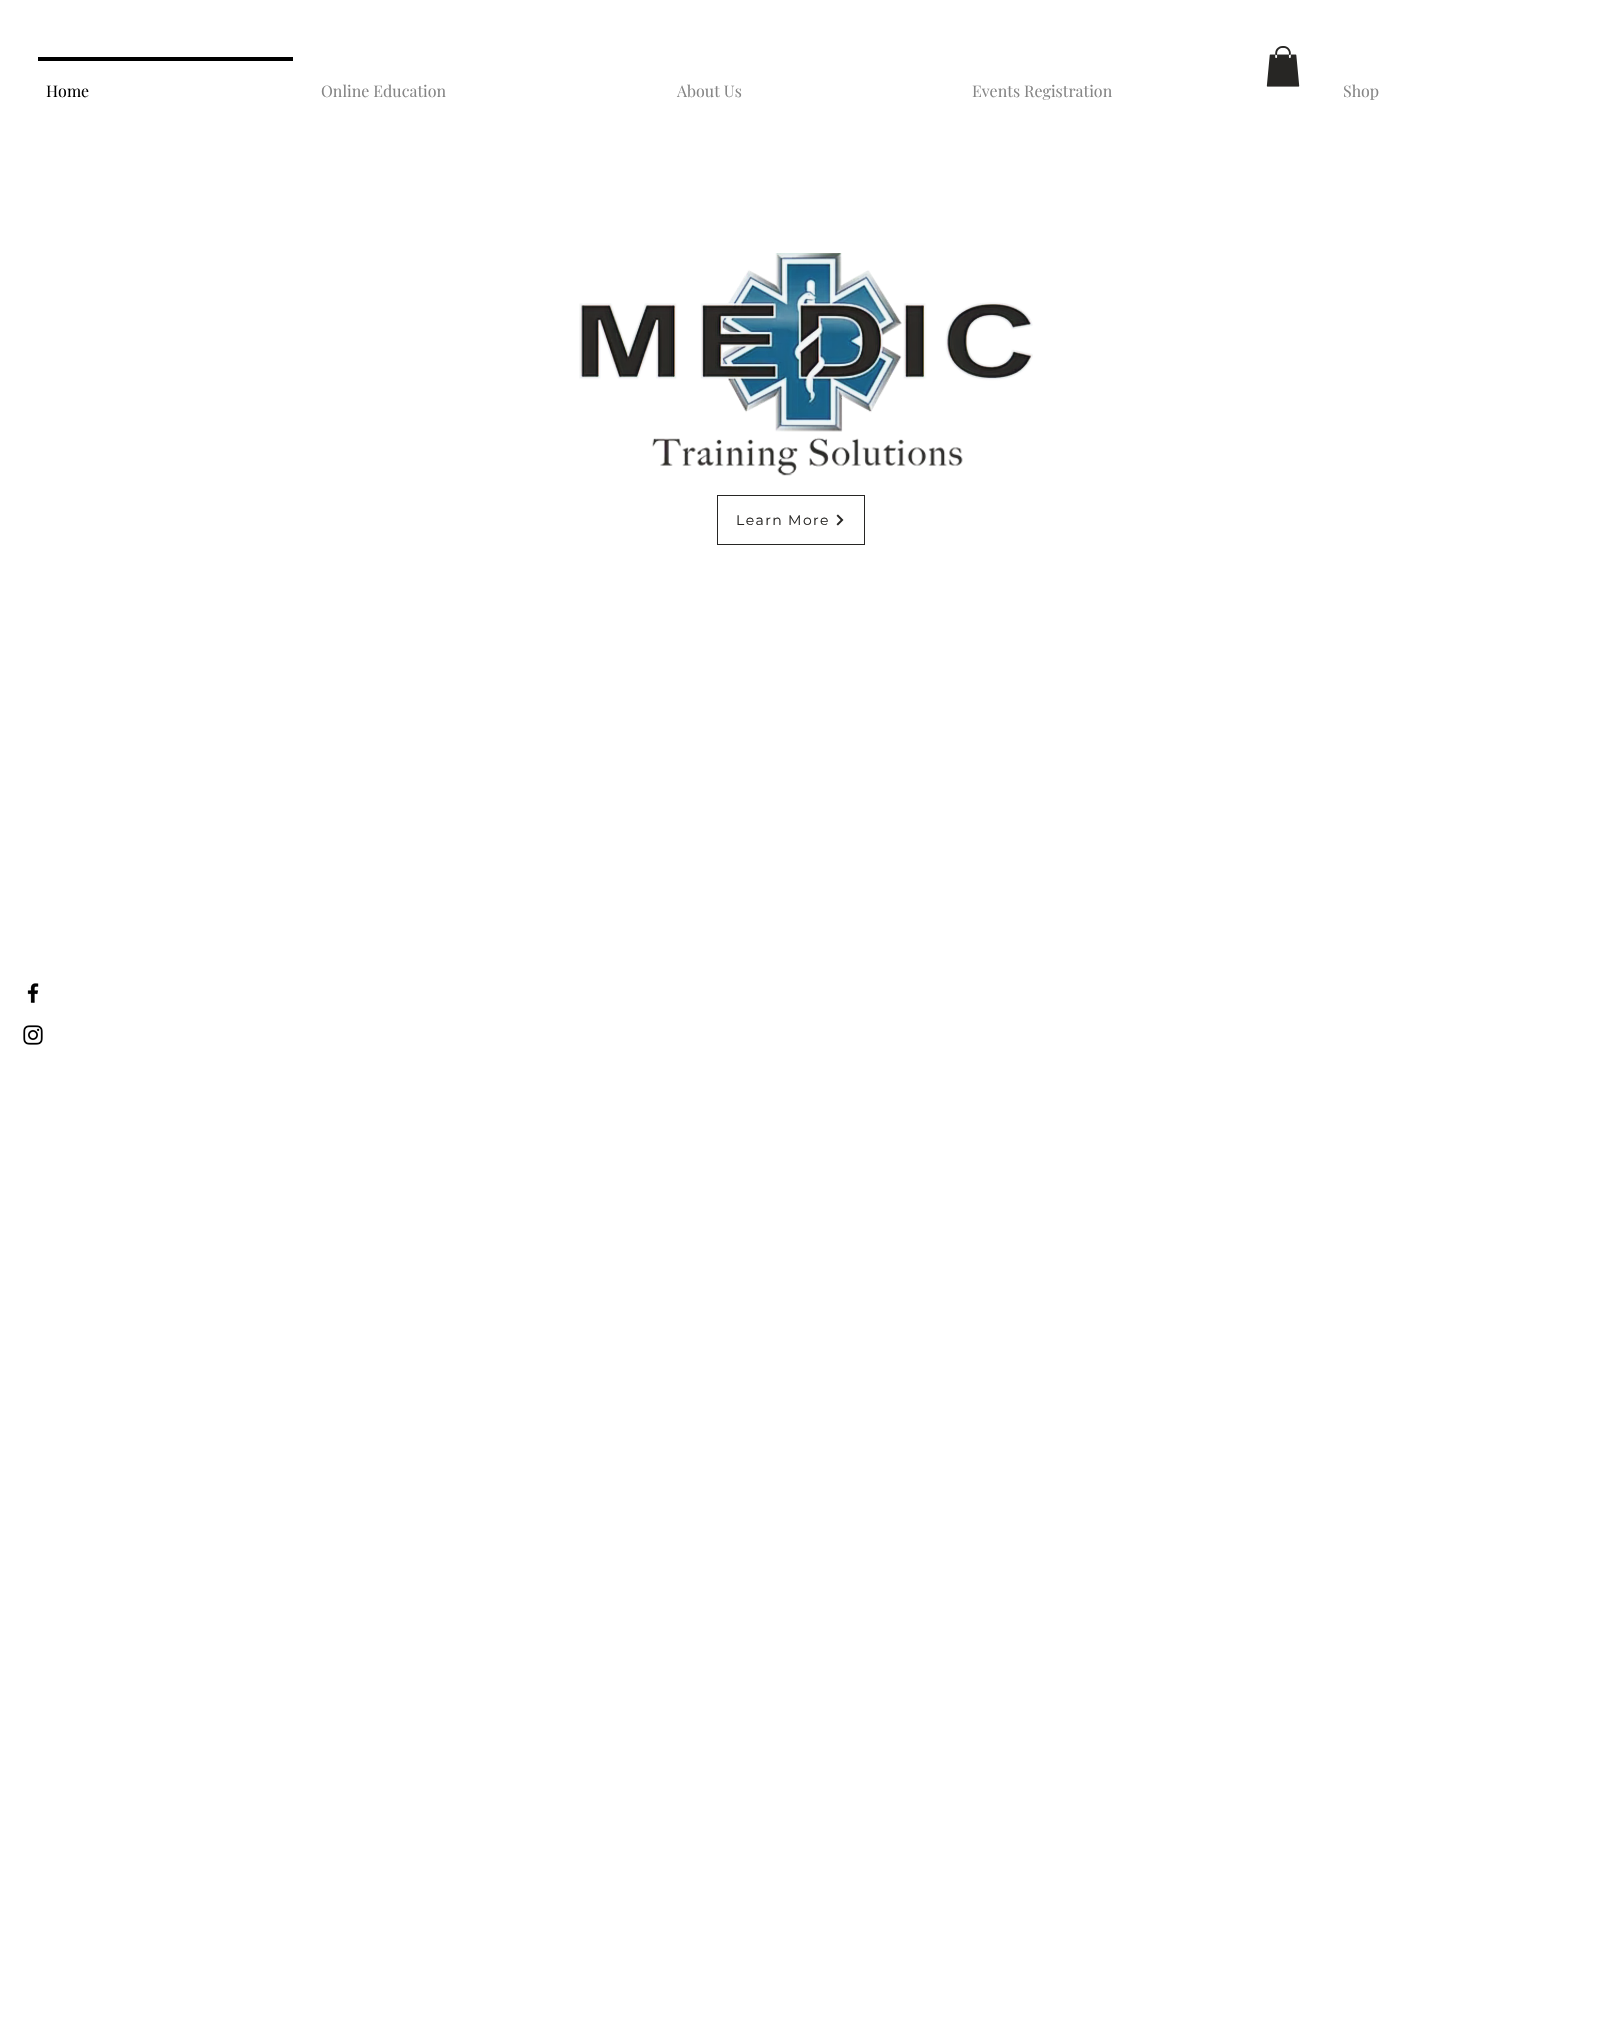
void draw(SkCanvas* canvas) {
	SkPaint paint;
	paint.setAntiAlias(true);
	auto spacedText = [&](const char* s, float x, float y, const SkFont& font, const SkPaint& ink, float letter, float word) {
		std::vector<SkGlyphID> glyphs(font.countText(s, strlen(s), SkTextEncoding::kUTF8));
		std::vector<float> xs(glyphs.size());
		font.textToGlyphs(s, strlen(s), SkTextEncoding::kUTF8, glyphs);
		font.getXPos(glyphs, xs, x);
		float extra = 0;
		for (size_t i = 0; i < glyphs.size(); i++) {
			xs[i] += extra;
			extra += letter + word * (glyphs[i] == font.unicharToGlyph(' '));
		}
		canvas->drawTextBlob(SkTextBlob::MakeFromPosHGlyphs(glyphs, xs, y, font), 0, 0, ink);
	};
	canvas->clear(0xffffffff);
	canvas->drawImageRect(SkImages::DeferredFromEncodedData(SkData::MakeFromFileName("img1.png")), SkRect::MakeXYWH(1266, 46, 34, 41), SkSamplingOptions());
	paint.setColor(0xff000000);
	canvas->drawRect(SkRect::MakeXYWH(38, 57, 255, 4), paint);
	SkFont f1(fontMgr->matchFamilyStyle("Playfair Display", SkFontStyle::Normal()), 16);
	f1.setSubpixel(true);
	canvas->drawString("Home", 46, 97, f1, paint);
	paint.setColor(0xff858585);
	canvas->drawString("Online Education", 321, 97, f1, paint);
	canvas->drawString("About Us", 677, 97, f1, paint);
	canvas->drawString("Events Registration", 972, 97, f1, paint);
	canvas->drawString("Shop", 1343, 97, f1, paint);
	canvas->drawImageRect(SkImages::DeferredFromEncodedData(SkData::MakeFromFileName("img2.png")), SkRect::MakeXYWH(579, 253, 454, 223), SkSamplingOptions());
	paint.setStroke(true);
	paint.setStrokeWidth(1);
	paint.setColor(0xff272624);
	canvas->drawRect(SkRect::MakeXYWH(717.5, 495.5, 147, 49), paint);
	SkFont f2(fontMgr->matchFamilyStyle("Montserrat", SkFontStyle::Normal()), 14);
	f2.setSubpixel(true);
	paint.setStroke(false);
	spacedText("Learn More", 736, 525, f2, paint, 1.4, 0);
	canvas->drawImageRect(SkImages::DeferredFromEncodedData(SkData::MakeFromFileName("img3.png")), SkRect::MakeXYWH(836, 514, 8, 12), SkSamplingOptions());
	canvas->drawImageRect(SkImages::DeferredFromEncodedData(SkData::MakeFromFileName("img4.png")), SkRect::MakeXYWH(27, 983, 12, 20), SkSamplingOptions());
	canvas->drawImageRect(SkImages::DeferredFromEncodedData(SkData::MakeFromFileName("img5.png")), SkRect::MakeXYWH(23, 1025, 20, 20), SkSamplingOptions());
}
